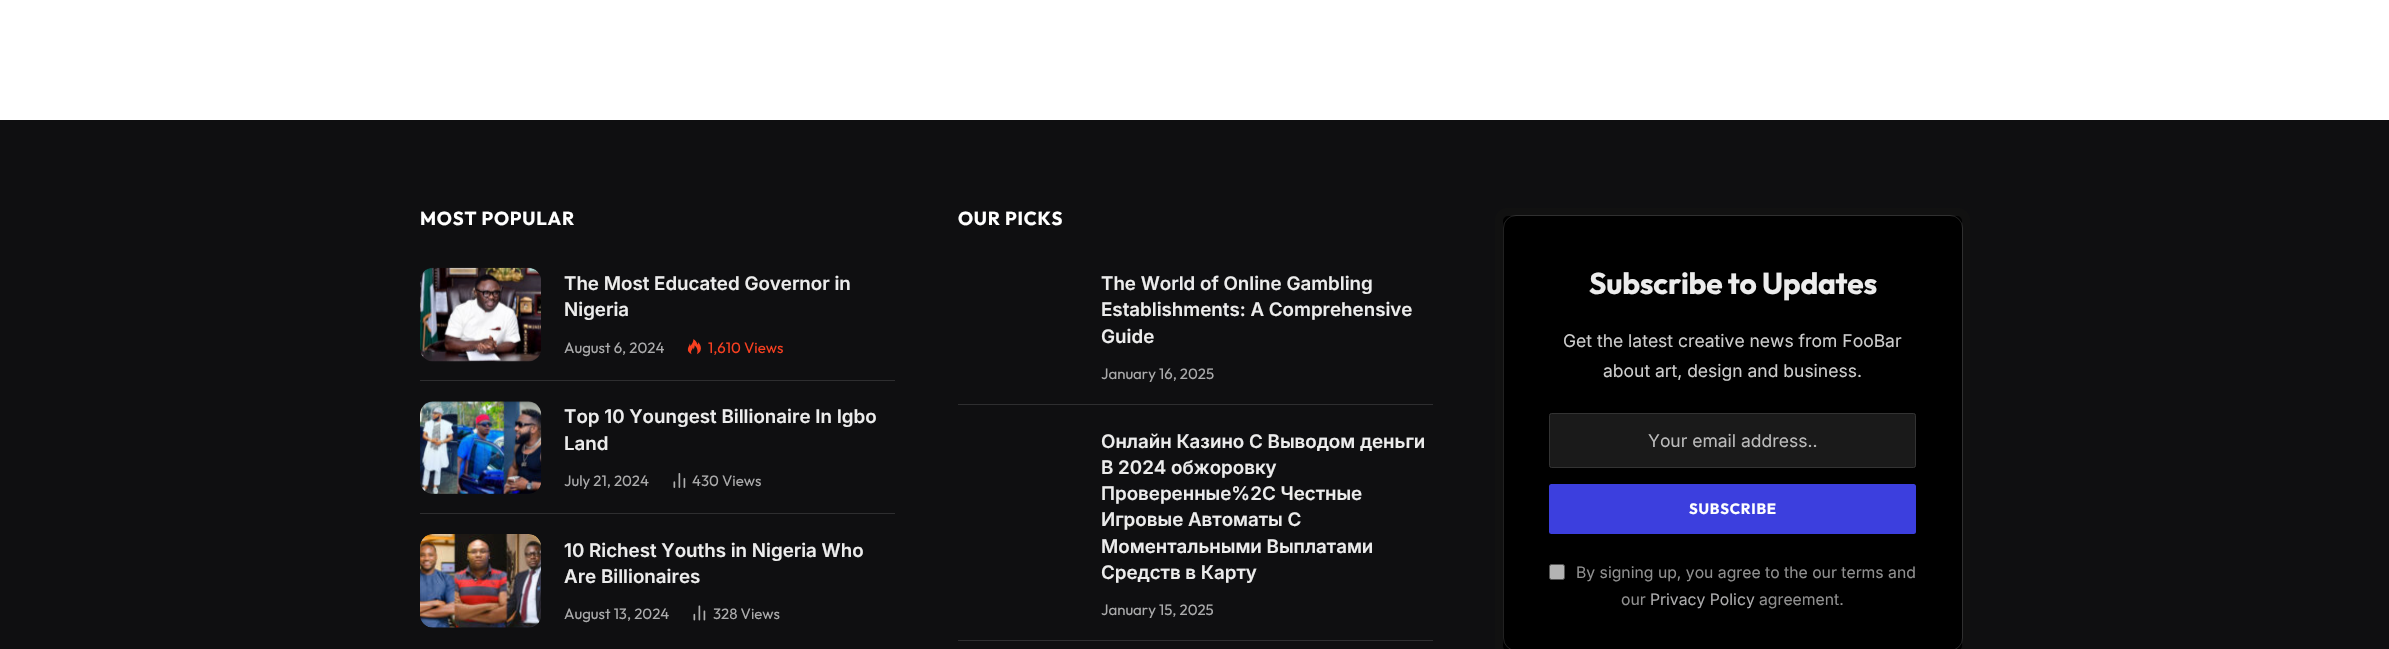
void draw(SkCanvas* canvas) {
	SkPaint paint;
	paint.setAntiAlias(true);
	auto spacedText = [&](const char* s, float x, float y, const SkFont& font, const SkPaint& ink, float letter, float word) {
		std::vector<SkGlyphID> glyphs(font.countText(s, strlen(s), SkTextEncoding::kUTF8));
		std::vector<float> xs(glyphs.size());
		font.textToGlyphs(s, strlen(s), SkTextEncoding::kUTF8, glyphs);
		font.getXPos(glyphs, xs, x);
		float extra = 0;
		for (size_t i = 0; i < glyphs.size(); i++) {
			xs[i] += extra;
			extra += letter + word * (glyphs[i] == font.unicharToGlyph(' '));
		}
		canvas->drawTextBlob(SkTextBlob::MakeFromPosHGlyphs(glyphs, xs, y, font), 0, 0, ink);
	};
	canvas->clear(0xffffffff);
	paint.setColor(0xff0f0f11);
	canvas->drawRect(SkRect::MakeXYWH(0, 120, 2389, 529), paint);
	SkFont f1(fontMgr->matchFamilyStyle("Outfit", SkFontStyle::Bold()), 18.75);
	f1.setSubpixel(true);
	paint.setColor(0xffffffff);
	spacedText("MOST POPULAR", 420, 225, f1, paint, 0.75, 0);
	canvas->drawImageRect(SkImages::DeferredFromEncodedData(SkData::MakeFromFileName("img1.png")), SkRect::MakeXYWH(420, 267, 121, 95), SkSamplingOptions());
	SkFont f2(fontMgr->matchFamilyStyle("Inter", SkFontStyle(600, SkFontStyle::kNormal_Width, SkFontStyle::kUpright_Slant)), 18.75);
	f2.setSubpixel(true);
	paint.setColor(0xffececec);
	canvas->drawString("The Most Educated Governor in", 564, 290, f2, paint);
	canvas->drawString("Nigeria", 564, 316, f2, paint);
	SkFont f3(fontMgr->matchFamilyStyle("Outfit", SkFontStyle::Normal()), 15);
	f3.setSubpixel(true);
	paint.setColor(0xffababac);
	canvas->drawString("August 6, 2024", 564, 353, f3, paint);
	canvas->drawImageRect(SkImages::DeferredFromEncodedData(SkData::MakeFromFileName("img2.png")), SkRect::MakeXYWH(687, 339, 14, 16), SkSamplingOptions());
	paint.setColor(0xfff73f20);
	canvas->drawString("1,610 Views", 708, 353, f3, paint);
	paint.setColor(0xff2e2e30);
	canvas->drawRect(SkRect::MakeXYWH(420, 380, 475, 1), paint);
	canvas->drawImageRect(SkImages::DeferredFromEncodedData(SkData::MakeFromFileName("img3.png")), SkRect::MakeXYWH(420, 401, 122, 93), SkSamplingOptions());
	paint.setColor(0xffececec);
	canvas->drawString("Top 10 Youngest Billionaire In Igbo", 564, 423, f2, paint);
	canvas->drawString("Land", 564, 450, f2, paint);
	paint.setColor(0xffababac);
	canvas->drawString("July 21, 2024", 564, 486, f3, paint);
	canvas->drawImageRect(SkImages::DeferredFromEncodedData(SkData::MakeFromFileName("img4.png")), SkRect::MakeXYWH(673, 473, 13, 15), SkSamplingOptions());
	canvas->drawString("430 Views", 692, 486, f3, paint);
	paint.setColor(0xff2e2e30);
	canvas->drawRect(SkRect::MakeXYWH(420, 513, 475, 1), paint);
	canvas->drawImageRect(SkImages::DeferredFromEncodedData(SkData::MakeFromFileName("img5.png")), SkRect::MakeXYWH(420, 534, 121, 94), SkSamplingOptions());
	paint.setColor(0xffececec);
	canvas->drawString("10 Richest Youths in Nigeria Who", 564, 557, f2, paint);
	canvas->drawString("Are Billionaires", 564, 583, f2, paint);
	paint.setColor(0xffababac);
	canvas->drawString("August 13, 2024", 564, 619, f3, paint);
	canvas->drawImageRect(SkImages::DeferredFromEncodedData(SkData::MakeFromFileName("img6.png")), SkRect::MakeXYWH(693, 605, 13, 16), SkSamplingOptions());
	canvas->drawString("328 Views", 713, 619, f3, paint);
	paint.setColor(0xffffffff);
	spacedText("OUR PICKS", 958, 225, f1, paint, 0.75, 0);
	paint.setColor(0xffececec);
	canvas->drawString("The World of Online Gambling", 1101, 290, f2, paint);
	canvas->drawString("Establishments: A Comprehensive", 1101, 316, f2, paint);
	canvas->drawString("Guide", 1101, 343, f2, paint);
	paint.setColor(0xffababac);
	canvas->drawString("January 16, 2025", 1101, 379, f3, paint);
	paint.setColor(0xff2e2e30);
	canvas->drawRect(SkRect::MakeXYWH(958, 404, 475, 1), paint);
	paint.setColor(0xffececec);
	canvas->drawString("Онлайн Казино С Выводом деньги", 1101, 448, f2, paint);
	canvas->drawString("В 2024 обжоровку", 1101, 474, f2, paint);
	canvas->drawString("Проверенные%2C Честные", 1101, 500, f2, paint);
	canvas->drawString("Игровые Автоматы С", 1101, 526, f2, paint);
	canvas->drawString("Моментальными Выплатами", 1101, 553, f2, paint);
	canvas->drawString("Средств в Карту", 1101, 579, f2, paint);
	paint.setColor(0xffababac);
	canvas->drawString("January 15, 2025", 1101, 615, f3, paint);
	paint.setColor(0xff2e2e30);
	canvas->drawRect(SkRect::MakeXYWH(958, 640, 475, 1), paint);
	paint.setColor(0xff000000);
	canvas->drawRoundRect(SkRect::MakeXYWH(1499, 212, 467, 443), 9, 9, paint);
	paint.setStroke(true);
	paint.setStrokeWidth(8);
	paint.setColor(0xff111111);
	canvas->drawRoundRect(SkRect::MakeXYWH(1499, 212, 467, 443), 9, 9, paint);
	paint.setStrokeWidth(1);
	paint.setColor(0x21ffffff);
	canvas->drawRoundRect(SkRect::MakeXYWH(1503.5, 215.5, 459, 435), 12.5, 12.5, paint);
	SkFont f4(fontMgr->matchFamilyStyle("Outfit", SkFontStyle::Bold()), 30);
	f4.setSubpixel(true);
	paint.setStroke(false);
	paint.setColor(0xffececec);
	spacedText("Subscribe to Updates", 1589, 294, f4, paint, -0.25, 0);
	SkFont f5(fontMgr->matchFamilyStyle("Inter", SkFontStyle::Normal()), 17.5);
	f5.setSubpixel(true);
	paint.setColor(0xffcccccc);
	canvas->drawString("Get the latest creative news from FooBar", 1563, 347, f5, paint);
	canvas->drawString("about art, design and business.", 1603, 377, f5, paint);
	paint.setColor(0xff1a1a1a);
	canvas->drawRoundRect(SkRect::MakeXYWH(1549.5, 413.5, 366, 54), 2, 2, paint);
	paint.setStroke(true);
	paint.setColor(0xff333333);
	canvas->drawRoundRect(SkRect::MakeXYWH(1549.5, 413.5, 366, 54), 2, 2, paint);
	paint.setStroke(false);
	paint.setColor(0xffbbbbbb);
	canvas->drawString("Your email address..", 1648, 447, f5, paint);
	paint.setColor(0xff3c3fde);
	canvas->drawRoundRect(SkRect::MakeXYWH(1549, 484, 367, 50), 2.5, 2.5, paint);
	SkFont f6(fontMgr->matchFamilyStyle("Outfit", SkFontStyle::Bold()), 15);
	f6.setSubpixel(true);
	paint.setColor(0xffffffff);
	spacedText("SUBSCRIBE", 1689, 514, f6, paint, 0.75, 0);
	paint.setColor(0xffb3b3b3);
	canvas->drawRoundRect(SkRect::MakeXYWH(1549.5, 564.5, 15, 15), 2, 2, paint);
	paint.setStroke(true);
	paint.setColor(0xff535353);
	canvas->drawRoundRect(SkRect::MakeXYWH(1549.5, 564.5, 15, 15), 2, 2, paint);
	SkFont f7(fontMgr->matchFamilyStyle("Inter", SkFontStyle::Normal()), 15.75);
	f7.setSubpixel(true);
	paint.setStroke(false);
	paint.setColor(0xff8f8f8f);
	canvas->drawString("By signing up, you agree to the our terms and", 1576, 578, f7, paint);
	canvas->drawString("our", 1621, 605, f7, paint);
	paint.setColor(0xffababac);
	canvas->drawString("Privacy Policy", 1650, 605, f7, paint);
	paint.setColor(0xff8f8f8f);
	canvas->drawString("agreement.", 1759, 605, f7, paint);
}
